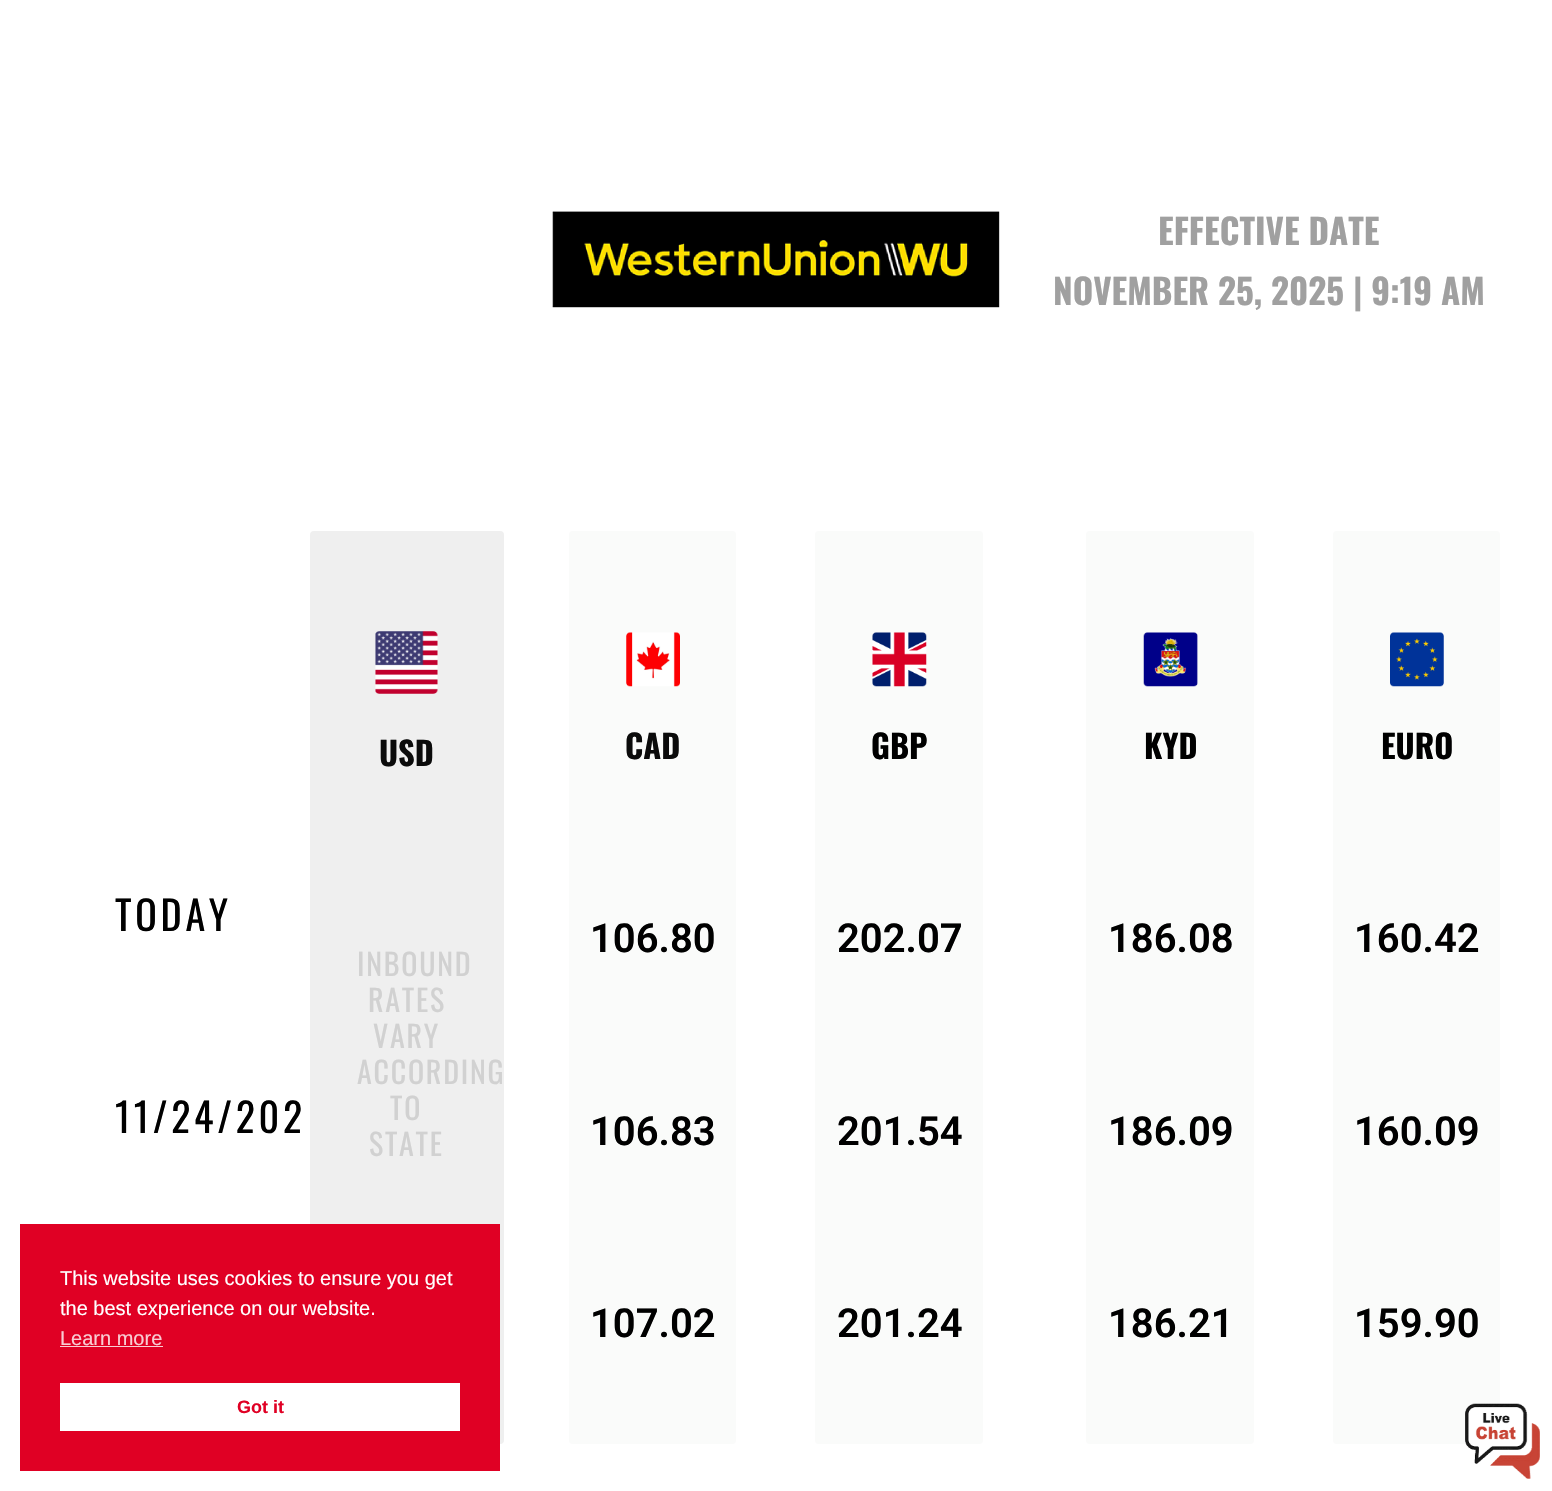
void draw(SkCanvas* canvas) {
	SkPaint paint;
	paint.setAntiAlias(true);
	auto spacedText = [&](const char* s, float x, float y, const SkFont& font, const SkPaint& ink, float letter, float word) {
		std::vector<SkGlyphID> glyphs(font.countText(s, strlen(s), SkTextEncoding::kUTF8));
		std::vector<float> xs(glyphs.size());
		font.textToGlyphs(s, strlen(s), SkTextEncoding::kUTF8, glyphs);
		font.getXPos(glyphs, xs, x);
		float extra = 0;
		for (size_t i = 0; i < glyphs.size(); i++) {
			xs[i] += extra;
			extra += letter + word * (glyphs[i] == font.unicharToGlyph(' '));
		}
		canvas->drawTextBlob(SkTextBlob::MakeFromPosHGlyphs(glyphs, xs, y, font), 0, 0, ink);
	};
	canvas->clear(0xffffffff);
	canvas->drawImageRect(SkImages::DeferredFromEncodedData(SkData::MakeFromFileName("img1.png")), SkRect::MakeXYWH(552, 211, 448, 97), SkSamplingOptions());
	SkFont f1(fontMgr->matchFamilyStyle("Oswald", SkFontStyle::Bold()), 35);
	f1.setSubpixel(true);
	paint.setColor(0xffa0a0a0);
	canvas->drawString("EFFECTIVE DATE", 1158, 245, f1, paint);
	canvas->drawString("NOVEMBER 25, 2025 | 9:19 AM", 1053, 305, f1, paint);
	SkFont f2(fontMgr->matchFamilyStyle("Oswald", SkFontStyle::Normal()), 40);
	f2.setSubpixel(true);
	paint.setColor(0xff000000);
	spacedText("TODAY", 115, 931, f2, paint, 3.75, 0);
	spacedText("11/24/202", 115, 1133, f2, paint, 3.75, 0);
	paint.setColor(0xffefefef);
	canvas->drawRoundRect(SkRect::MakeXYWH(310, 531, 194, 913), 4, 4, paint);
	canvas->drawImageRect(SkImages::DeferredFromEncodedData(SkData::MakeFromFileName("img2.png")), SkRect::MakeXYWH(375, 631, 63, 63), SkSamplingOptions());
	SkFont f3(fontMgr->matchFamilyStyle("Oswald", SkFontStyle::Bold()), 32.5);
	f3.setSubpixel(true);
	paint.setColor(0xff0b0b0b);
	canvas->drawString("USD", 379, 766, f3, paint);
	SkFont f4(fontMgr->matchFamilyStyle("Oswald", SkFontStyle::Normal()), 30);
	f4.setSubpixel(true);
	paint.setColor(0xffd1d1d1);
	spacedText("INBOUND", 357, 976, f4, paint, 1.75, 0);
	spacedText("RATES", 368, 1012, f4, paint, 1.75, 0);
	spacedText("VARY", 373, 1048, f4, paint, 1.75, 0);
	spacedText("ACCORDING", 357, 1084, f4, paint, 1.75, 0);
	spacedText("TO", 390, 1120, f4, paint, 1.75, 0);
	spacedText("STATE", 369, 1156, f4, paint, 1.75, 0);
	paint.setColor(0xfffafbfa);
	canvas->drawRoundRect(SkRect::MakeXYWH(569, 531, 167, 913), 4, 4, paint);
	canvas->drawImageRect(SkImages::DeferredFromEncodedData(SkData::MakeFromFileName("img3.png")), SkRect::MakeXYWH(626, 632, 54, 55), SkSamplingOptions());
	paint.setColor(0xff0b0b0b);
	canvas->drawString("CAD", 625, 759, f3, paint);
	SkFont f5(fontMgr->matchFamilyStyle("Roboto", SkFontStyle(600, SkFontStyle::kNormal_Width, SkFontStyle::kUpright_Slant)), 40);
	f5.setSubpixel(true);
	paint.setColor(0xff000000);
	canvas->drawString("106.80", 590, 952, f5, paint);
	canvas->drawString("106.83", 590, 1145, f5, paint);
	canvas->drawString("107.02", 590, 1337, f5, paint);
	paint.setColor(0xfffafbfa);
	canvas->drawRoundRect(SkRect::MakeXYWH(815, 531, 168, 913), 4, 4, paint);
	canvas->drawImageRect(SkImages::DeferredFromEncodedData(SkData::MakeFromFileName("img4.png")), SkRect::MakeXYWH(872, 632, 55, 55), SkSamplingOptions());
	paint.setColor(0xff000000);
	canvas->drawString("GBP", 871, 759, f3, paint);
	canvas->drawString("202.07", 837, 952, f5, paint);
	canvas->drawString("201.54", 837, 1145, f5, paint);
	canvas->drawString("201.24", 837, 1337, f5, paint);
	paint.setColor(0xfffafbfa);
	canvas->drawRoundRect(SkRect::MakeXYWH(1086, 531, 168, 913), 4, 4, paint);
	canvas->drawImageRect(SkImages::DeferredFromEncodedData(SkData::MakeFromFileName("img5.png")), SkRect::MakeXYWH(1143, 632, 55, 55), SkSamplingOptions());
	paint.setColor(0xff000000);
	canvas->drawString("KYD", 1144, 759, f3, paint);
	canvas->drawString("186.08", 1108, 952, f5, paint);
	canvas->drawString("186.09", 1108, 1145, f5, paint);
	canvas->drawString("186.21", 1108, 1337, f5, paint);
	paint.setColor(0xfffafbfa);
	canvas->drawRoundRect(SkRect::MakeXYWH(1333, 531, 167, 913), 4, 4, paint);
	canvas->drawImageRect(SkImages::DeferredFromEncodedData(SkData::MakeFromFileName("img6.png")), SkRect::MakeXYWH(1390, 632, 54, 55), SkSamplingOptions());
	paint.setColor(0xff000000);
	canvas->drawString("EURO", 1381, 759, f3, paint);
	canvas->drawString("160.42", 1354, 952, f5, paint);
	canvas->drawString("160.09", 1354, 1145, f5, paint);
	canvas->drawString("159.90", 1354, 1337, f5, paint);
	paint.setColor(0xffe00024);
	canvas->drawRect(SkRect::MakeXYWH(20, 1224, 480, 247), paint);
	SkFont f6(fontMgr->matchFamilyStyle("Liberation Sans", SkFontStyle::Normal()), 20);
	f6.setSubpixel(true);
	paint.setColor(0xffffffff);
	canvas->drawString("This website uses cookies to ensure you get", 60, 1285, f6, paint);
	canvas->drawString("the best experience on our website.", 60, 1315, f6, paint);
	paint.setColor(0xfff9ccd3);
	canvas->drawString("Learn more", 60, 1345, f6, paint);
	canvas->drawRect(SkRect::MakeXYWH(60, 1346, 103, 1), paint);
	paint.setColor(0xffffffff);
	canvas->drawRect(SkRect::MakeXYWH(60, 1383, 400, 48), paint);
	SkFont f7(fontMgr->matchFamilyStyle("Liberation Sans", SkFontStyle::Bold()), 18);
	f7.setSubpixel(true);
	paint.setColor(0xffe00024);
	canvas->drawString("Got it", 237, 1413, f7, paint);
	canvas->drawImageRect(SkImages::DeferredFromEncodedData(SkData::MakeFromFileName("img7.png")), SkRect::MakeXYWH(1465, 1403, 75, 76), SkSamplingOptions());
}
